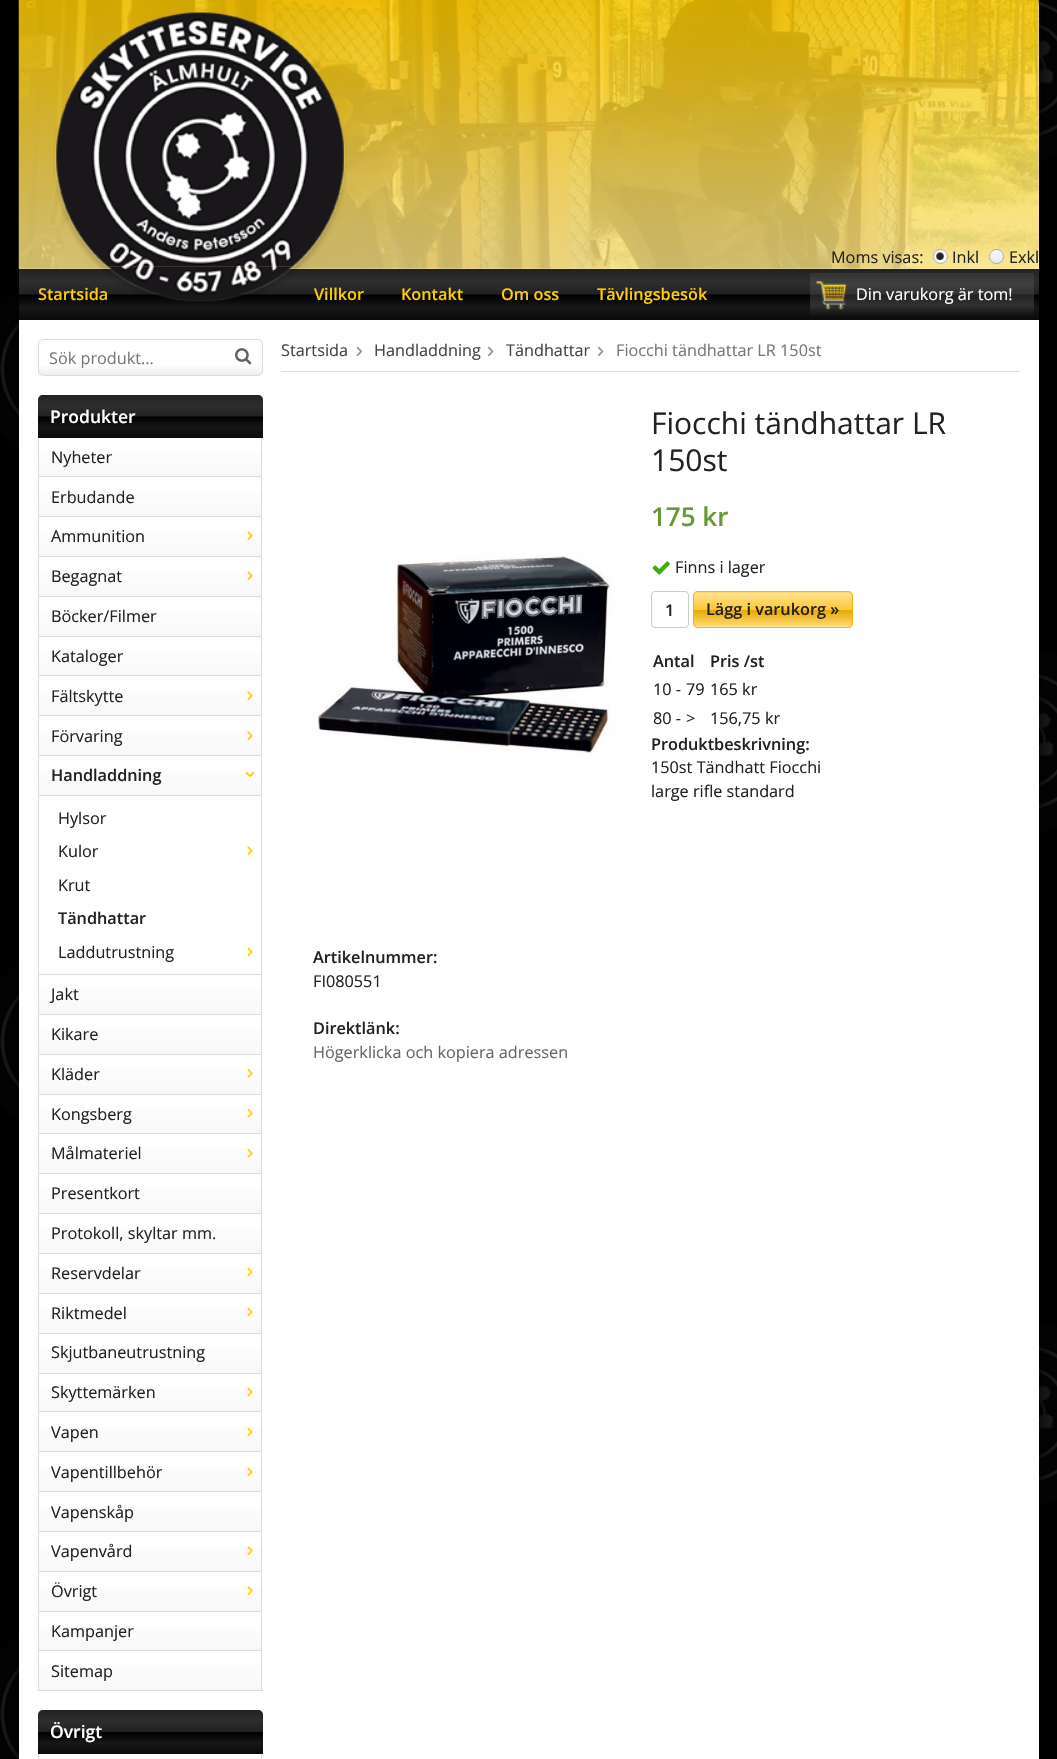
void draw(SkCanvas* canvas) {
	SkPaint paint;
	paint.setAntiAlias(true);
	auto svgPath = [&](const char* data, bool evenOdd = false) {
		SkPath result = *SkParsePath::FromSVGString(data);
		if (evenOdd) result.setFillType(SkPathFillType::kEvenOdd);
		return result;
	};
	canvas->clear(0xffffffff);
	canvas->drawImageRect(SkImages::DeferredFromEncodedData(SkData::MakeFromFileName("img1.png")), SkRect::MakeXYWH(0, 0, 1057, 1759), SkSamplingOptions());
	paint.setColor(0xff000000);
	paint.setMaskFilter(SkMaskFilter::MakeBlur(kNormal_SkBlurStyle, 9.5));
	canvas->drawRoundRect(SkRect::MakeXYWH(19, 6, 1020, 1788), 6, 6, paint);
	paint.setMaskFilter(nullptr);
	paint.setColor(0xffffffff);
	canvas->drawRoundRect(SkRect::MakeXYWH(19, 0, 1020, 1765), 6, 6, paint);
	canvas->drawImageRect(SkImages::DeferredFromEncodedData(SkData::MakeFromFileName("img2.png")), SkRect::MakeXYWH(18, 0, 1021, 269), SkSamplingOptions());
	canvas->drawImageRect(SkImages::DeferredFromEncodedData(SkData::MakeFromFileName("img3.png")), SkRect::MakeXYWH(53, 11, 294, 257), SkSamplingOptions());
	SkFont f1(fontMgr->matchFamilyStyle("Open Sans", SkFontStyle::Normal()), 16.25);
	f1.setSubpixel(true);
	paint.setColor(0xff222222);
	canvas->drawString("Moms visas:", 831, 263, f1, paint);
	paint.setColor(0xfff9f9f9);
	canvas->drawCircle(940.5, 256.5, 7.5, paint);
	canvas->drawImageRect(SkImages::DeferredFromEncodedData(SkData::MakeFromFileName("img4.png")), SkRect::MakeXYWH(936, 252, 8, 8), SkSamplingOptions());
	paint.setStroke(true);
	paint.setStrokeWidth(1);
	paint.setColor(0xffa9a9a9);
	canvas->drawCircle(940.5, 256.5, 7, paint);
	paint.setStroke(false);
	paint.setColor(0xff222222);
	canvas->drawString("Inkl", 952, 263, f1, paint);
	canvas->save();
	canvas->clipPath(svgPath("M996.5 249C1000.5 249 1004 252.5 1004 256.5C1004 260.5 1000.5 264 996.5 264C992.5 264 989 260.5 989 256.5C989 252.5 992.5 249 996.5 249Z"), true);
	{
		const SkColor colors[] = {0xfff9f9f9, 0xffe9e9e9};
		const float stops[] = {0, 1};
		const SkPoint ends[] = {{996, 250}, {996, 263}};
		paint.setShader(SkGradientShader::MakeLinear(ends, colors, stops, 2, SkTileMode::kClamp));
		paint.setAlpha(255);
	}
	canvas->drawRect(SkRect::MakeXYWH(989, 250, 15, 13), paint);
	canvas->restore();
	paint.setStroke(true);
	paint.setShader(nullptr);
	paint.setColor(0xffa9a9a9);
	canvas->drawCircle(996.5, 256.5, 7, paint);
	paint.setStroke(false);
	paint.setColor(0xff222222);
	canvas->drawString("Exkl", 1009, 263, f1, paint);
	{
		const SkColor colors[] = {0xff0a0a0a, 0xff171717, 0xff000000, 0xff212121, 0xff2e2e2e, 0xff212121};
		const float stops[] = {0, 0.25, 0.49, 0.51, 0.75, 1};
		const SkPoint ends[] = {{529, 320}, {529, 269}};
		paint.setShader(SkGradientShader::MakeLinear(ends, colors, stops, 6, SkTileMode::kClamp));
		paint.setAlpha(255);
	}
	canvas->drawRect(SkRect::MakeXYWH(19, 269, 1020, 51), paint);
	SkFont f2(fontMgr->matchFamilyStyle("Open Sans", SkFontStyle(600, SkFontStyle::kNormal_Width, SkFontStyle::kUpright_Slant)), 16.25);
	f2.setSubpixel(true);
	paint.setShader(nullptr);
	paint.setColor(0xffffcc00);
	canvas->drawString("Startsida", 38, 300, f2, paint);
	canvas->drawImageRect(SkImages::DeferredFromEncodedData(SkData::MakeFromFileName("img5.png")), SkRect::MakeXYWH(97, 266, 204, 36), SkSamplingOptions());
	canvas->drawString("Villkor", 314, 300, f2, paint);
	canvas->drawString("Kontakt", 401, 300, f2, paint);
	canvas->drawString("Om oss", 501, 300, f2, paint);
	canvas->drawString("Tävlingsbesök", 597, 300, f2, paint);
	{
		const SkColor colors[] = {0xff111111, 0xff313131, 0xff222222, 0xff333333, 0xff404040, 0xff333333};
		const float stops[] = {0, 0.25, 0.49, 0.51, 0.75, 1};
		const SkPoint ends[] = {{922, 316}, {922, 273}};
		paint.setShader(SkGradientShader::MakeLinear(ends, colors, stops, 6, SkTileMode::kClamp));
		paint.setAlpha(255);
	}
	canvas->drawRoundRect(SkRect::MakeXYWH(810, 273, 224, 43), 2.5, 2.5, paint);
	canvas->drawImageRect(SkImages::DeferredFromEncodedData(SkData::MakeFromFileName("img6.png")), SkRect::MakeXYWH(816, 281, 31, 29), SkSamplingOptions());
	paint.setShader(nullptr);
	paint.setColor(0xffffffff);
	canvas->drawString("Din varukorg är tom!", 856, 300, f1, paint);
	canvas->save();
	canvas->clipPath(svgPath("M43 339H258C261 339 263 341 263 344V371C263 374 261 376 258 376H43C40 376 38 374 38 371V344C38 341 40 339 43 339Z"), true);
	{
		const SkColor colors[] = {0xffffffff, 0xffeeeeee};
		const float stops[] = {0.7, 1};
		const SkPoint ends[] = {{150, 340}, {150, 375}};
		paint.setShader(SkGradientShader::MakeLinear(ends, colors, stops, 2, SkTileMode::kClamp));
		paint.setAlpha(255);
	}
	canvas->drawRect(SkRect::MakeXYWH(38, 340, 225, 35), paint);
	canvas->restore();
	paint.setStroke(true);
	paint.setShader(nullptr);
	paint.setColor(0xffdcdcdc);
	canvas->drawRoundRect(SkRect::MakeXYWH(38.5, 339.5, 224, 36), 4.5, 4.5, paint);
	paint.setStroke(false);
	paint.setColor(0xff777777);
	canvas->drawString("Sök produkt...", 49, 364, f1, paint);
	canvas->drawImageRect(SkImages::DeferredFromEncodedData(SkData::MakeFromFileName("img7.png")), SkRect::MakeXYWH(235, 348, 17, 17), SkSamplingOptions());
	{
		const SkColor colors[] = {0xff0a0a0a, 0xff171717, 0xff000000, 0xff212121, 0xff2e2e2e, 0xff212121};
		const float stops[] = {0, 0.25, 0.49, 0.51, 0.75, 1};
		const SkPoint ends[] = {{150, 438}, {150, 395}};
		paint.setShader(SkGradientShader::MakeLinear(ends, colors, stops, 6, SkTileMode::kClamp));
		paint.setAlpha(255);
	}
	canvas->drawPath(svgPath("M43 395H258C261 395 263 397 263 400V438H38V400C38 397 40 395 43 395Z"), paint);
	SkFont f3(fontMgr->matchFamilyStyle("Open Sans", SkFontStyle(600, SkFontStyle::kNormal_Width, SkFontStyle::kUpright_Slant)), 17.5);
	f3.setSubpixel(true);
	paint.setShader(nullptr);
	paint.setColor(0xffffffff);
	canvas->drawString("Produkter", 50, 423, f3, paint);
	paint.setColor(0xffdcdcdc);
	canvas->drawRect(SkRect::MakeXYWH(261, 438, 1, 1253), paint);
	canvas->drawRect(SkRect::MakeXYWH(39, 1690, 224, 1), paint);
	canvas->drawRect(SkRect::MakeXYWH(38, 438, 1, 1253), paint);
	{
		const SkColor colors[] = {0xffffffff, 0xfff8f8f8};
		const float stops[] = {0, 1};
		const SkPoint ends[] = {{150, 438}, {150, 476}};
		paint.setShader(SkGradientShader::MakeLinear(ends, colors, stops, 2, SkTileMode::kClamp));
		paint.setAlpha(255);
	}
	canvas->drawRect(SkRect::MakeXYWH(39, 452, 222, 24), paint);
	paint.setShader(nullptr);
	paint.setColor(0xffdcdcdc);
	canvas->drawRect(SkRect::MakeXYWH(39, 476, 222, 1), paint);
	paint.setColor(0xff222222);
	canvas->drawString("Nyheter", 51, 463, f1, paint);
	{
		const SkColor colors[] = {0xffffffff, 0xfff8f8f8};
		const float stops[] = {0, 1};
		const SkPoint ends[] = {{150, 478}, {150, 516}};
		paint.setShader(SkGradientShader::MakeLinear(ends, colors, stops, 2, SkTileMode::kClamp));
		paint.setAlpha(255);
	}
	canvas->drawRect(SkRect::MakeXYWH(39, 492, 222, 24), paint);
	paint.setShader(nullptr);
	paint.setColor(0xffdcdcdc);
	canvas->drawRect(SkRect::MakeXYWH(39, 516, 222, 1), paint);
	paint.setColor(0xff222222);
	canvas->drawString("Erbudande", 51, 503, f1, paint);
	{
		const SkColor colors[] = {0xffffffff, 0xfff8f8f8};
		const float stops[] = {0, 1};
		const SkPoint ends[] = {{150, 518}, {150, 556}};
		paint.setShader(SkGradientShader::MakeLinear(ends, colors, stops, 2, SkTileMode::kClamp));
		paint.setAlpha(255);
	}
	canvas->drawRect(SkRect::MakeXYWH(39, 532, 222, 24), paint);
	paint.setShader(nullptr);
	paint.setColor(0xffdcdcdc);
	canvas->drawRect(SkRect::MakeXYWH(39, 556, 222, 1), paint);
	paint.setColor(0xff222222);
	canvas->drawString("Ammunition", 51, 542, f1, paint);
	canvas->drawImageRect(SkImages::DeferredFromEncodedData(SkData::MakeFromFileName("img8.png")), SkRect::MakeXYWH(247, 531, 6, 10), SkSamplingOptions());
	{
		const SkColor colors[] = {0xffffffff, 0xfff8f8f8};
		const float stops[] = {0, 1};
		const SkPoint ends[] = {{150, 558}, {150, 596}};
		paint.setShader(SkGradientShader::MakeLinear(ends, colors, stops, 2, SkTileMode::kClamp));
		paint.setAlpha(255);
	}
	canvas->drawRect(SkRect::MakeXYWH(39, 572, 222, 24), paint);
	paint.setShader(nullptr);
	paint.setColor(0xffdcdcdc);
	canvas->drawRect(SkRect::MakeXYWH(39, 596, 222, 1), paint);
	paint.setColor(0xff222222);
	canvas->drawString("Begagnat", 51, 582, f1, paint);
	canvas->drawImageRect(SkImages::DeferredFromEncodedData(SkData::MakeFromFileName("img8.png")), SkRect::MakeXYWH(247, 571, 6, 10), SkSamplingOptions());
	{
		const SkColor colors[] = {0xffffffff, 0xfff8f8f8};
		const float stops[] = {0, 1};
		const SkPoint ends[] = {{150, 598}, {150, 636}};
		paint.setShader(SkGradientShader::MakeLinear(ends, colors, stops, 2, SkTileMode::kClamp));
		paint.setAlpha(255);
	}
	canvas->drawRect(SkRect::MakeXYWH(39, 612, 222, 24), paint);
	paint.setShader(nullptr);
	paint.setColor(0xffdcdcdc);
	canvas->drawRect(SkRect::MakeXYWH(39, 636, 222, 1), paint);
	paint.setColor(0xff222222);
	canvas->drawString("Böcker/Filmer", 51, 622, f1, paint);
	{
		const SkColor colors[] = {0xffffffff, 0xfff8f8f8};
		const float stops[] = {0, 1};
		const SkPoint ends[] = {{150, 638}, {150, 675}};
		paint.setShader(SkGradientShader::MakeLinear(ends, colors, stops, 2, SkTileMode::kClamp));
		paint.setAlpha(255);
	}
	canvas->drawRect(SkRect::MakeXYWH(39, 651, 222, 24), paint);
	paint.setShader(nullptr);
	paint.setColor(0xffdcdcdc);
	canvas->drawRect(SkRect::MakeXYWH(39, 675, 222, 1), paint);
	paint.setColor(0xff222222);
	canvas->drawString("Kataloger", 51, 662, f1, paint);
	{
		const SkColor colors[] = {0xffffffff, 0xfff8f8f8};
		const float stops[] = {0, 1};
		const SkPoint ends[] = {{150, 676}, {150, 715}};
		paint.setShader(SkGradientShader::MakeLinear(ends, colors, stops, 2, SkTileMode::kClamp));
		paint.setAlpha(255);
	}
	canvas->drawRect(SkRect::MakeXYWH(39, 690, 222, 25), paint);
	paint.setShader(nullptr);
	paint.setColor(0xffdcdcdc);
	canvas->drawRect(SkRect::MakeXYWH(39, 715, 222, 1), paint);
	paint.setColor(0xff222222);
	canvas->drawString("Fältskytte", 51, 702, f1, paint);
	canvas->drawImageRect(SkImages::DeferredFromEncodedData(SkData::MakeFromFileName("img9.png")), SkRect::MakeXYWH(247, 691, 6, 10), SkSamplingOptions());
	{
		const SkColor colors[] = {0xffffffff, 0xfff8f8f8};
		const float stops[] = {0, 1};
		const SkPoint ends[] = {{150, 716}, {150, 755}};
		paint.setShader(SkGradientShader::MakeLinear(ends, colors, stops, 2, SkTileMode::kClamp));
		paint.setAlpha(255);
	}
	canvas->drawRect(SkRect::MakeXYWH(39, 730, 222, 25), paint);
	paint.setShader(nullptr);
	paint.setColor(0xffdcdcdc);
	canvas->drawRect(SkRect::MakeXYWH(39, 755, 222, 1), paint);
	paint.setColor(0xff222222);
	canvas->drawString("Förvaring", 51, 742, f1, paint);
	canvas->drawImageRect(SkImages::DeferredFromEncodedData(SkData::MakeFromFileName("img9.png")), SkRect::MakeXYWH(247, 731, 6, 10), SkSamplingOptions());
	{
		const SkColor colors[] = {0xffffffff, 0xfff8f8f8};
		const float stops[] = {0, 1};
		const SkPoint ends[] = {{150, 756}, {150, 795}};
		paint.setShader(SkGradientShader::MakeLinear(ends, colors, stops, 2, SkTileMode::kClamp));
		paint.setAlpha(255);
	}
	canvas->drawRect(SkRect::MakeXYWH(39, 770, 222, 25), paint);
	paint.setShader(nullptr);
	paint.setColor(0xffdcdcdc);
	canvas->drawRect(SkRect::MakeXYWH(39, 795, 222, 1), paint);
	paint.setColor(0xff222222);
	canvas->drawString("Handladdning", 51, 781, f2, paint);
	canvas->drawImageRect(SkImages::DeferredFromEncodedData(SkData::MakeFromFileName("img10.png")), SkRect::MakeXYWH(245, 772, 10, 5), SkSamplingOptions());
	paint.setColor(0xffdcdcdc);
	canvas->drawRect(SkRect::MakeXYWH(39, 974, 222, 1), paint);
	paint.setColor(0xff222222);
	canvas->drawString("Hylsor", 58, 824, f1, paint);
	canvas->drawString("Kulor", 58, 857, f1, paint);
	canvas->drawImageRect(SkImages::DeferredFromEncodedData(SkData::MakeFromFileName("img11.png")), SkRect::MakeXYWH(247, 846, 6, 10), SkSamplingOptions());
	canvas->drawString("Krut", 58, 891, f1, paint);
	canvas->drawString("Tändhattar", 58, 924, f2, paint);
	canvas->drawString("Laddutrustning", 58, 958, f1, paint);
	canvas->drawImageRect(SkImages::DeferredFromEncodedData(SkData::MakeFromFileName("img12.png")), SkRect::MakeXYWH(247, 947, 6, 10), SkSamplingOptions());
	{
		const SkColor colors[] = {0xffffffff, 0xfff8f8f8};
		const float stops[] = {0, 1};
		const SkPoint ends[] = {{150, 975}, {150, 1014}};
		paint.setShader(SkGradientShader::MakeLinear(ends, colors, stops, 2, SkTileMode::kClamp));
		paint.setAlpha(255);
	}
	canvas->drawRect(SkRect::MakeXYWH(39, 989, 222, 25), paint);
	paint.setShader(nullptr);
	paint.setColor(0xffdcdcdc);
	canvas->drawRect(SkRect::MakeXYWH(39, 1014, 222, 1), paint);
	paint.setColor(0xff222222);
	canvas->drawString("Jakt", 51, 1000, f1, paint);
	{
		const SkColor colors[] = {0xffffffff, 0xfff8f8f8};
		const float stops[] = {0, 1};
		const SkPoint ends[] = {{150, 1015}, {150, 1054}};
		paint.setShader(SkGradientShader::MakeLinear(ends, colors, stops, 2, SkTileMode::kClamp));
		paint.setAlpha(255);
	}
	canvas->drawRect(SkRect::MakeXYWH(39, 1029, 222, 25), paint);
	paint.setShader(nullptr);
	paint.setColor(0xffdcdcdc);
	canvas->drawRect(SkRect::MakeXYWH(39, 1054, 222, 1), paint);
	paint.setColor(0xff222222);
	canvas->drawString("Kikare", 51, 1040, f1, paint);
	{
		const SkColor colors[] = {0xffffffff, 0xfff8f8f8};
		const float stops[] = {0, 1};
		const SkPoint ends[] = {{150, 1055}, {150, 1094}};
		paint.setShader(SkGradientShader::MakeLinear(ends, colors, stops, 2, SkTileMode::kClamp));
		paint.setAlpha(255);
	}
	canvas->drawRect(SkRect::MakeXYWH(39, 1069, 222, 25), paint);
	paint.setShader(nullptr);
	paint.setColor(0xffdcdcdc);
	canvas->drawRect(SkRect::MakeXYWH(39, 1094, 222, 1), paint);
	paint.setColor(0xff222222);
	canvas->drawString("Kläder", 51, 1080, f1, paint);
	canvas->drawImageRect(SkImages::DeferredFromEncodedData(SkData::MakeFromFileName("img13.png")), SkRect::MakeXYWH(247, 1068, 6, 10), SkSamplingOptions());
	{
		const SkColor colors[] = {0xffffffff, 0xfff8f8f8};
		const float stops[] = {0, 1};
		const SkPoint ends[] = {{150, 1095}, {150, 1133}};
		paint.setShader(SkGradientShader::MakeLinear(ends, colors, stops, 2, SkTileMode::kClamp));
		paint.setAlpha(255);
	}
	canvas->drawRect(SkRect::MakeXYWH(39, 1109, 222, 24), paint);
	paint.setShader(nullptr);
	paint.setColor(0xffdcdcdc);
	canvas->drawRect(SkRect::MakeXYWH(39, 1133, 222, 1), paint);
	paint.setColor(0xff222222);
	canvas->drawString("Kongsberg", 51, 1120, f1, paint);
	canvas->drawImageRect(SkImages::DeferredFromEncodedData(SkData::MakeFromFileName("img14.png")), SkRect::MakeXYWH(247, 1108, 6, 10), SkSamplingOptions());
	{
		const SkColor colors[] = {0xffffffff, 0xfff8f8f8};
		const float stops[] = {0, 1};
		const SkPoint ends[] = {{150, 1134}, {150, 1173}};
		paint.setShader(SkGradientShader::MakeLinear(ends, colors, stops, 2, SkTileMode::kClamp));
		paint.setAlpha(255);
	}
	canvas->drawRect(SkRect::MakeXYWH(39, 1148, 222, 25), paint);
	paint.setShader(nullptr);
	paint.setColor(0xffdcdcdc);
	canvas->drawRect(SkRect::MakeXYWH(39, 1173, 222, 1), paint);
	paint.setColor(0xff222222);
	canvas->drawString("Målmateriel", 51, 1159, f1, paint);
	canvas->drawImageRect(SkImages::DeferredFromEncodedData(SkData::MakeFromFileName("img15.png")), SkRect::MakeXYWH(247, 1148, 6, 10), SkSamplingOptions());
	{
		const SkColor colors[] = {0xffffffff, 0xfff8f8f8};
		const float stops[] = {0, 1};
		const SkPoint ends[] = {{150, 1174}, {150, 1213}};
		paint.setShader(SkGradientShader::MakeLinear(ends, colors, stops, 2, SkTileMode::kClamp));
		paint.setAlpha(255);
	}
	canvas->drawRect(SkRect::MakeXYWH(39, 1188, 222, 25), paint);
	paint.setShader(nullptr);
	paint.setColor(0xffdcdcdc);
	canvas->drawRect(SkRect::MakeXYWH(39, 1213, 222, 1), paint);
	paint.setColor(0xff222222);
	canvas->drawString("Presentkort", 51, 1199, f1, paint);
	{
		const SkColor colors[] = {0xffffffff, 0xfff8f8f8};
		const float stops[] = {0, 1};
		const SkPoint ends[] = {{150, 1214}, {150, 1253}};
		paint.setShader(SkGradientShader::MakeLinear(ends, colors, stops, 2, SkTileMode::kClamp));
		paint.setAlpha(255);
	}
	canvas->drawRect(SkRect::MakeXYWH(39, 1228, 222, 25), paint);
	paint.setShader(nullptr);
	paint.setColor(0xffdcdcdc);
	canvas->drawRect(SkRect::MakeXYWH(39, 1253, 222, 1), paint);
	paint.setColor(0xff222222);
	canvas->drawString("Protokoll, skyltar mm.", 51, 1239, f1, paint);
	{
		const SkColor colors[] = {0xffffffff, 0xfff8f8f8};
		const float stops[] = {0, 1};
		const SkPoint ends[] = {{150, 1254}, {150, 1293}};
		paint.setShader(SkGradientShader::MakeLinear(ends, colors, stops, 2, SkTileMode::kClamp));
		paint.setAlpha(255);
	}
	canvas->drawRect(SkRect::MakeXYWH(39, 1268, 222, 25), paint);
	paint.setShader(nullptr);
	paint.setColor(0xffdcdcdc);
	canvas->drawRect(SkRect::MakeXYWH(39, 1293, 222, 1), paint);
	paint.setColor(0xff222222);
	canvas->drawString("Reservdelar", 51, 1279, f1, paint);
	canvas->drawImageRect(SkImages::DeferredFromEncodedData(SkData::MakeFromFileName("img16.png")), SkRect::MakeXYWH(247, 1267, 6, 10), SkSamplingOptions());
	{
		const SkColor colors[] = {0xffffffff, 0xfff8f8f8};
		const float stops[] = {0, 1};
		const SkPoint ends[] = {{150, 1294}, {150, 1333}};
		paint.setShader(SkGradientShader::MakeLinear(ends, colors, stops, 2, SkTileMode::kClamp));
		paint.setAlpha(255);
	}
	canvas->drawRect(SkRect::MakeXYWH(39, 1308, 222, 25), paint);
	paint.setShader(nullptr);
	paint.setColor(0xffdcdcdc);
	canvas->drawRect(SkRect::MakeXYWH(39, 1333, 222, 1), paint);
	paint.setColor(0xff222222);
	canvas->drawString("Riktmedel", 51, 1319, f1, paint);
	canvas->drawImageRect(SkImages::DeferredFromEncodedData(SkData::MakeFromFileName("img16.png")), SkRect::MakeXYWH(247, 1307, 6, 10), SkSamplingOptions());
	{
		const SkColor colors[] = {0xffffffff, 0xfff8f8f8};
		const float stops[] = {0, 1};
		const SkPoint ends[] = {{150, 1334}, {150, 1373}};
		paint.setShader(SkGradientShader::MakeLinear(ends, colors, stops, 2, SkTileMode::kClamp));
		paint.setAlpha(255);
	}
	canvas->drawRect(SkRect::MakeXYWH(39, 1348, 222, 25), paint);
	paint.setShader(nullptr);
	paint.setColor(0xffdcdcdc);
	canvas->drawRect(SkRect::MakeXYWH(39, 1373, 222, 1), paint);
	paint.setColor(0xff222222);
	canvas->drawString("Skjutbaneutrustning", 51, 1358, f1, paint);
	{
		const SkColor colors[] = {0xffffffff, 0xfff8f8f8};
		const float stops[] = {0, 1};
		const SkPoint ends[] = {{150, 1374}, {150, 1411}};
		paint.setShader(SkGradientShader::MakeLinear(ends, colors, stops, 2, SkTileMode::kClamp));
		paint.setAlpha(255);
	}
	canvas->drawRect(SkRect::MakeXYWH(39, 1387, 222, 24), paint);
	paint.setShader(nullptr);
	paint.setColor(0xffdcdcdc);
	canvas->drawRect(SkRect::MakeXYWH(39, 1411, 222, 1), paint);
	paint.setColor(0xff222222);
	canvas->drawString("Skyttemärken", 51, 1398, f1, paint);
	canvas->drawImageRect(SkImages::DeferredFromEncodedData(SkData::MakeFromFileName("img17.png")), SkRect::MakeXYWH(247, 1387, 6, 10), SkSamplingOptions());
	{
		const SkColor colors[] = {0xffffffff, 0xfff8f8f8};
		const float stops[] = {0, 1};
		const SkPoint ends[] = {{150, 1413}, {150, 1451}};
		paint.setShader(SkGradientShader::MakeLinear(ends, colors, stops, 2, SkTileMode::kClamp));
		paint.setAlpha(255);
	}
	canvas->drawRect(SkRect::MakeXYWH(39, 1427, 222, 24), paint);
	paint.setShader(nullptr);
	paint.setColor(0xffdcdcdc);
	canvas->drawRect(SkRect::MakeXYWH(39, 1451, 222, 1), paint);
	paint.setColor(0xff222222);
	canvas->drawString("Vapen", 51, 1438, f1, paint);
	canvas->drawImageRect(SkImages::DeferredFromEncodedData(SkData::MakeFromFileName("img18.png")), SkRect::MakeXYWH(247, 1427, 6, 10), SkSamplingOptions());
	{
		const SkColor colors[] = {0xffffffff, 0xfff8f8f8};
		const float stops[] = {0, 1};
		const SkPoint ends[] = {{150, 1453}, {150, 1491}};
		paint.setShader(SkGradientShader::MakeLinear(ends, colors, stops, 2, SkTileMode::kClamp));
		paint.setAlpha(255);
	}
	canvas->drawRect(SkRect::MakeXYWH(39, 1467, 222, 24), paint);
	paint.setShader(nullptr);
	paint.setColor(0xffdcdcdc);
	canvas->drawRect(SkRect::MakeXYWH(39, 1491, 222, 1), paint);
	paint.setColor(0xff222222);
	canvas->drawString("Vapentillbehör", 51, 1478, f1, paint);
	canvas->drawImageRect(SkImages::DeferredFromEncodedData(SkData::MakeFromFileName("img18.png")), SkRect::MakeXYWH(247, 1467, 6, 10), SkSamplingOptions());
	{
		const SkColor colors[] = {0xffffffff, 0xfff8f8f8};
		const float stops[] = {0, 1};
		const SkPoint ends[] = {{150, 1493}, {150, 1531}};
		paint.setShader(SkGradientShader::MakeLinear(ends, colors, stops, 2, SkTileMode::kClamp));
		paint.setAlpha(255);
	}
	canvas->drawRect(SkRect::MakeXYWH(39, 1507, 222, 24), paint);
	paint.setShader(nullptr);
	paint.setColor(0xffdcdcdc);
	canvas->drawRect(SkRect::MakeXYWH(39, 1531, 222, 1), paint);
	paint.setColor(0xff222222);
	canvas->drawString("Vapenskåp", 51, 1518, f1, paint);
	{
		const SkColor colors[] = {0xffffffff, 0xfff8f8f8};
		const float stops[] = {0, 1};
		const SkPoint ends[] = {{150, 1533}, {150, 1571}};
		paint.setShader(SkGradientShader::MakeLinear(ends, colors, stops, 2, SkTileMode::kClamp));
		paint.setAlpha(255);
	}
	canvas->drawRect(SkRect::MakeXYWH(39, 1547, 222, 24), paint);
	paint.setShader(nullptr);
	paint.setColor(0xffdcdcdc);
	canvas->drawRect(SkRect::MakeXYWH(39, 1571, 222, 1), paint);
	paint.setColor(0xff222222);
	canvas->drawString("Vapenvård", 51, 1557, f1, paint);
	canvas->drawImageRect(SkImages::DeferredFromEncodedData(SkData::MakeFromFileName("img8.png")), SkRect::MakeXYWH(247, 1546, 6, 10), SkSamplingOptions());
	{
		const SkColor colors[] = {0xffffffff, 0xfff8f8f8};
		const float stops[] = {0, 1};
		const SkPoint ends[] = {{150, 1573}, {150, 1611}};
		paint.setShader(SkGradientShader::MakeLinear(ends, colors, stops, 2, SkTileMode::kClamp));
		paint.setAlpha(255);
	}
	canvas->drawRect(SkRect::MakeXYWH(39, 1587, 222, 24), paint);
	paint.setShader(nullptr);
	paint.setColor(0xffdcdcdc);
	canvas->drawRect(SkRect::MakeXYWH(39, 1611, 222, 1), paint);
	paint.setColor(0xff222222);
	canvas->drawString("Övrigt", 51, 1597, f1, paint);
	canvas->drawImageRect(SkImages::DeferredFromEncodedData(SkData::MakeFromFileName("img8.png")), SkRect::MakeXYWH(247, 1586, 6, 10), SkSamplingOptions());
	{
		const SkColor colors[] = {0xffffffff, 0xfff8f8f8};
		const float stops[] = {0, 1};
		const SkPoint ends[] = {{150, 1613}, {150, 1650}};
		paint.setShader(SkGradientShader::MakeLinear(ends, colors, stops, 2, SkTileMode::kClamp));
		paint.setAlpha(255);
	}
	canvas->drawRect(SkRect::MakeXYWH(39, 1626, 222, 24), paint);
	paint.setShader(nullptr);
	paint.setColor(0xffdcdcdc);
	canvas->drawRect(SkRect::MakeXYWH(39, 1650, 222, 1), paint);
	paint.setColor(0xff222222);
	canvas->drawString("Kampanjer", 51, 1637, f1, paint);
	{
		const SkColor colors[] = {0xffffffff, 0xfff8f8f8};
		const float stops[] = {0, 1};
		const SkPoint ends[] = {{150, 1651}, {150, 1690}};
		paint.setShader(SkGradientShader::MakeLinear(ends, colors, stops, 2, SkTileMode::kClamp));
		paint.setAlpha(255);
	}
	canvas->drawRect(SkRect::MakeXYWH(39, 1665, 222, 25), paint);
	paint.setShader(nullptr);
	paint.setColor(0xff222222);
	canvas->drawString("Sitemap", 51, 1677, f1, paint);
	{
		const SkColor colors[] = {0xff0a0a0a, 0xff171717, 0xff000000, 0xff212121, 0xff2e2e2e, 0xff212121};
		const float stops[] = {0, 0.25, 0.49, 0.51, 0.75, 1};
		const SkPoint ends[] = {{150, 1754}, {150, 1710}};
		paint.setShader(SkGradientShader::MakeLinear(ends, colors, stops, 6, SkTileMode::kClamp));
		paint.setAlpha(255);
	}
	canvas->drawPath(svgPath("M43 1710H258C261 1710 263 1712 263 1715V1754H38V1715C38 1712 40 1710 43 1710Z"), paint);
	paint.setShader(nullptr);
	paint.setColor(0xffffffff);
	canvas->drawString("Övrigt", 50, 1738, f3, paint);
	paint.setColor(0xffdcdcdc);
	canvas->drawRect(SkRect::MakeXYWH(261, 1754, 1, 5), paint);
	canvas->drawRect(SkRect::MakeXYWH(38, 1754, 1, 5), paint);
	canvas->drawRect(SkRect::MakeXYWH(281, 371, 739, 1), paint);
	paint.setColor(0xff444444);
	canvas->drawString("Startsida", 281, 356, f1, paint);
	canvas->drawImageRect(SkImages::DeferredFromEncodedData(SkData::MakeFromFileName("img19.png")), SkRect::MakeXYWH(356, 346, 7, 11), SkSamplingOptions());
	canvas->drawString("Handladdning", 374, 356, f1, paint);
	canvas->drawImageRect(SkImages::DeferredFromEncodedData(SkData::MakeFromFileName("img20.png")), SkRect::MakeXYWH(487, 346, 7, 11), SkSamplingOptions());
	canvas->drawString("Tändhattar", 506, 356, f1, paint);
	canvas->drawImageRect(SkImages::DeferredFromEncodedData(SkData::MakeFromFileName("img20.png")), SkRect::MakeXYWH(597, 346, 7, 11), SkSamplingOptions());
	paint.setColor(0xff777777);
	canvas->drawString("Fiocchi tändhattar LR 150st", 616, 356, f1, paint);
	canvas->drawImageRect(SkImages::DeferredFromEncodedData(SkData::MakeFromFileName("img21.png")), SkRect::MakeXYWH(313, 552, 303, 206), SkSamplingOptions());
	SkFont f4(fontMgr->matchFamilyStyle("Open Sans", SkFontStyle::Normal()), 30);
	f4.setSubpixel(true);
	paint.setColor(0xff222222);
	canvas->drawString("Fiocchi tändhattar LR", 651, 434, f4, paint);
	canvas->drawString("150st", 651, 471, f4, paint);
	SkFont f5(fontMgr->matchFamilyStyle("Open Sans", SkFontStyle(600, SkFontStyle::kNormal_Width, SkFontStyle::kUpright_Slant)), 26);
	f5.setSubpixel(true);
	paint.setColor(0xff669933);
	canvas->drawString("175 kr", 651, 526, f5, paint);
	canvas->drawImageRect(SkImages::DeferredFromEncodedData(SkData::MakeFromFileName("img22.png")), SkRect::MakeXYWH(652, 561, 18, 14), SkSamplingOptions());
	paint.setColor(0xff222222);
	canvas->drawString("Finns i lager", 675, 573, f1, paint);
	paint.setStroke(true);
	paint.setColor(0xffcccccc);
	canvas->drawRoundRect(SkRect::MakeXYWH(651.5, 591.5, 37, 36), 3.5, 3.5, paint);
	paint.setStroke(false);
	paint.setColor(0xff222222);
	canvas->drawString("1", 665, 616, f2, paint);
	canvas->save();
	canvas->clipPath(svgPath("M698 591H848C851 591 853 593 853 596V623C853 626 851 628 848 628H698C695 628 693 626 693 623V596C693 593 695 591 698 591Z"), true);
	{
		const SkColor colors[] = {0xfffee094, 0xffffc933, 0xffe6a800, 0xffffd970};
		const float stops[] = {0, 0.5, 0.51, 1};
		const SkPoint ends[] = {{773, 559}, {773, 593}};
		paint.setShader(SkGradientShader::MakeLinear(ends, colors, stops, 4, SkTileMode::kClamp));
		paint.setAlpha(255);
	}
	canvas->drawRect(SkRect::MakeXYWH(693, 591, 160, 2), paint);
	{
		const SkColor colors[] = {0xfffee094, 0xffffc933, 0xffe6a800, 0xffffd970};
		const float stops[] = {0, 0.5, 0.51, 1};
		const SkPoint ends[] = {{773, 593}, {773, 626}};
		paint.setShader(SkGradientShader::MakeLinear(ends, colors, stops, 4, SkTileMode::kClamp));
		paint.setAlpha(255);
	}
	canvas->drawRect(SkRect::MakeXYWH(693, 593, 160, 33), paint);
	{
		const SkColor colors[] = {0xfffee094, 0xffffc933, 0xffe6a800, 0xffffd970};
		const float stops[] = {0, 0.5, 0.51, 1};
		const SkPoint ends[] = {{773, 626}, {773, 660}};
		paint.setShader(SkGradientShader::MakeLinear(ends, colors, stops, 4, SkTileMode::kClamp));
		paint.setAlpha(255);
	}
	canvas->drawRect(SkRect::MakeXYWH(693, 626, 160, 2), paint);
	canvas->restore();
	paint.setStroke(true);
	paint.setShader(nullptr);
	paint.setColor(0xfff8b500);
	canvas->drawRoundRect(SkRect::MakeXYWH(693.5, 591.5, 159, 36), 4.5, 4.5, paint);
	paint.setStroke(false);
	paint.setColor(0xff222222);
	canvas->drawString("Lägg i varukorg »", 706, 615, f2, paint);
	canvas->drawString("Antal", 653, 667, f2, paint);
	canvas->drawString("Pris /st", 710, 667, f2, paint);
	canvas->drawString("10 -", 653, 695, f1, paint);
	canvas->drawString("79", 686, 695, f1, paint);
	canvas->drawString("165 kr", 710, 695, f1, paint);
	canvas->drawString("80 -", 653, 724, f1, paint);
	canvas->drawString(">", 686, 724, f1, paint);
	canvas->drawString("156,75 kr", 710, 724, f1, paint);
	canvas->drawString("Produktbeskrivning:", 651, 750, f2, paint);
	canvas->drawString("150st Tändhatt Fiocchi", 651, 773, f1, paint);
	canvas->drawString("large rifle standard", 651, 797, f1, paint);
	canvas->drawString("Artikelnummer:", 313, 963, f2, paint);
	canvas->drawString("FI080551", 313, 987, f1, paint);
	canvas->drawString("Direktlänk:", 313, 1034, f2, paint);
	paint.setColor(0xff666666);
	canvas->drawString("Högerklicka och kopiera adressen", 313, 1058, f1, paint);
}
